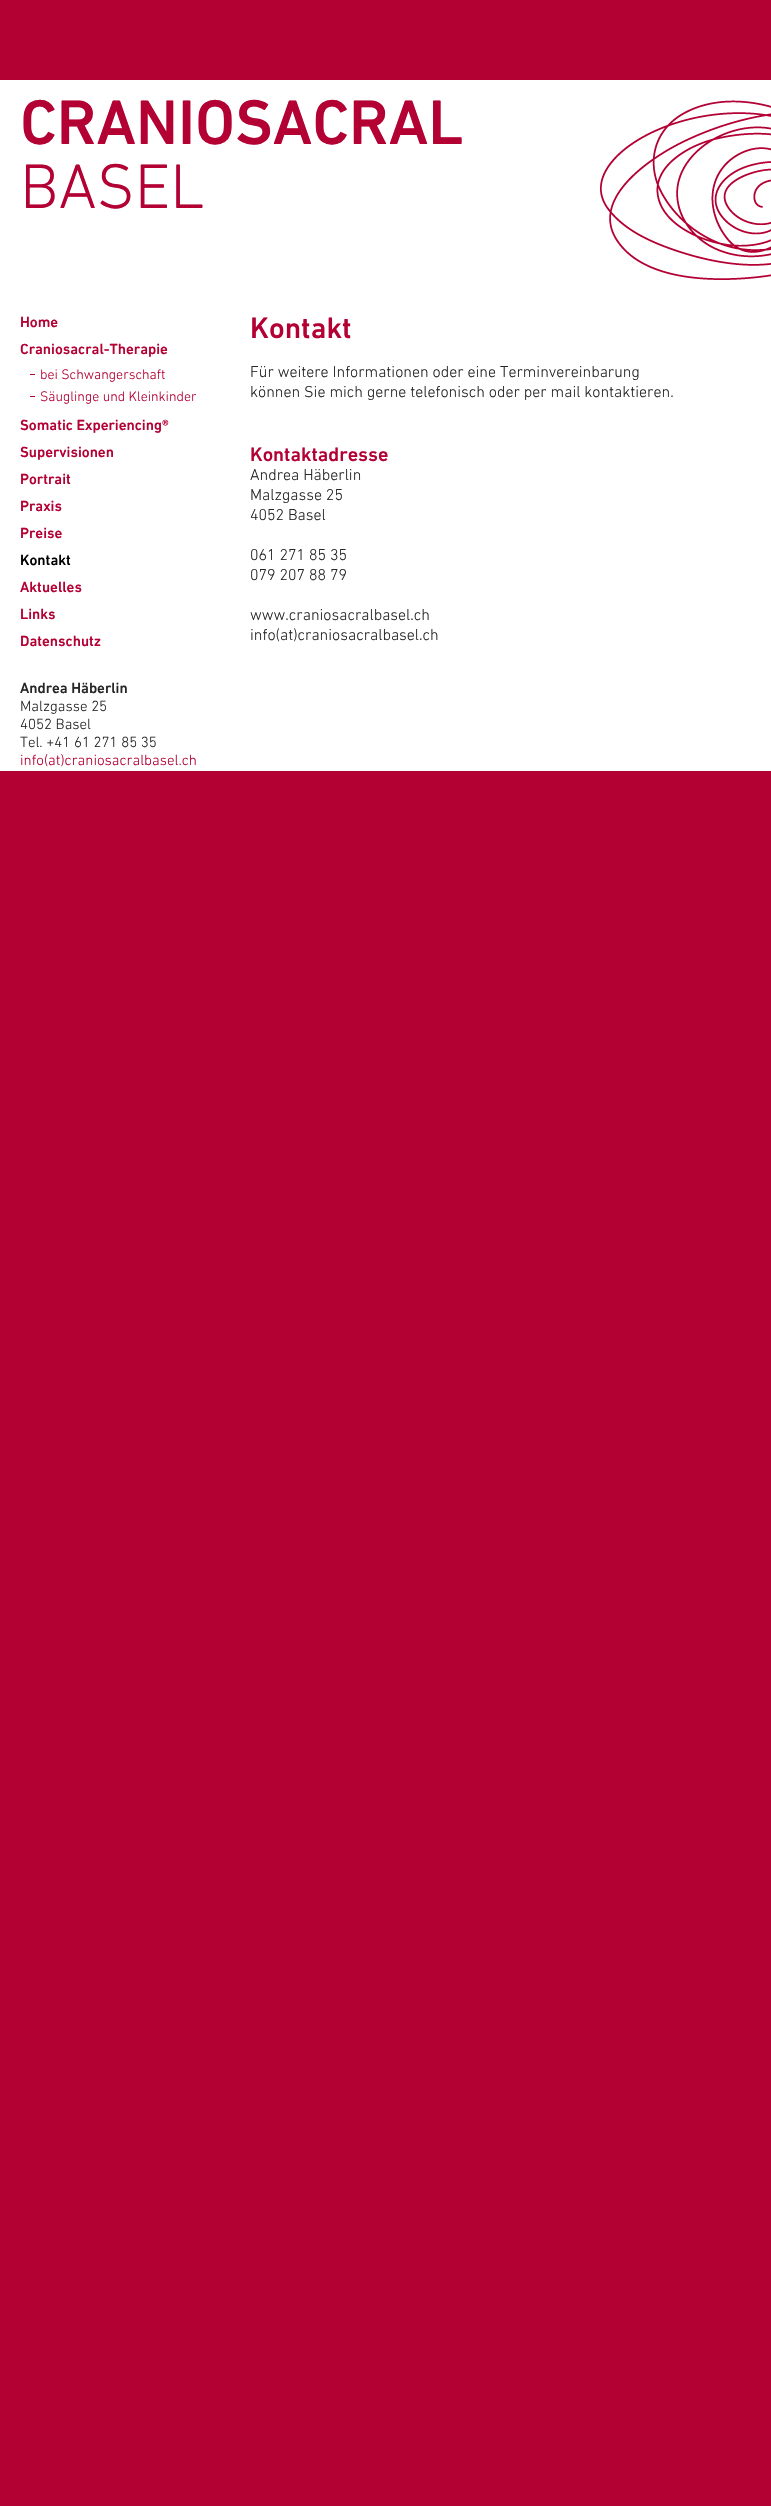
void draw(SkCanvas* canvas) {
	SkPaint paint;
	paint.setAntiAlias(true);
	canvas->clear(0xffb30134);
	paint.setColor(0xffffffff);
	canvas->drawRect(SkRect::MakeXYWH(0, 80, 771, 691), paint);
	canvas->drawImageRect(SkImages::DeferredFromEncodedData(SkData::MakeFromFileName("img1.png")), SkRect::MakeXYWH(600, 100, 171, 180), SkSamplingOptions());
	SkFont f1(fontMgr->matchFamilyStyle("DIN Next", SkFontStyle(500, SkFontStyle::kNormal_Width, SkFontStyle::kUpright_Slant)), 64);
	f1.setSubpixel(true);
	paint.setColor(0xffb30134);
	canvas->drawString("CRANIOSACRAL", 20, 144, f1, paint);
	SkFont f2(fontMgr->matchFamilyStyle("DIN Next", SkFontStyle(300, SkFontStyle::kNormal_Width, SkFontStyle::kUpright_Slant)), 64);
	f2.setSubpixel(true);
	canvas->drawString("BASEL", 20, 208, f2, paint);
	SkFont f3(fontMgr->matchFamilyStyle("DIN Next", SkFontStyle(500, SkFontStyle::kNormal_Width, SkFontStyle::kUpright_Slant)), 15);
	f3.setSubpixel(true);
	canvas->drawString("Home", 20, 327, f3, paint);
	canvas->drawString("Craniosacral-Therapie", 20, 354, f3, paint);
	paint.setColor(0xffb30135);
	canvas->drawRect(SkRect::MakeXYWH(30, 374, 5, 1), paint);
	SkFont f4(fontMgr->matchFamilyStyle("DIN Next", SkFontStyle(300, SkFontStyle::kNormal_Width, SkFontStyle::kUpright_Slant)), 14);
	f4.setSubpixel(true);
	paint.setColor(0xffb30134);
	canvas->drawString("bei Schwangerschaft", 40, 379, f4, paint);
	paint.setColor(0xffb30135);
	canvas->drawRect(SkRect::MakeXYWH(30, 396, 5, 1), paint);
	paint.setColor(0xffb30134);
	canvas->drawString("Säuglinge und Kleinkinder", 40, 401, f4, paint);
	canvas->drawString("Somatic Experiencing®", 20, 430, f3, paint);
	canvas->drawString("Supervisionen", 20, 457, f3, paint);
	canvas->drawString("Portrait", 20, 484, f3, paint);
	canvas->drawString("Praxis", 20, 511, f3, paint);
	canvas->drawString("Preise", 20, 538, f3, paint);
	paint.setColor(0xff000000);
	canvas->drawString("Kontakt", 20, 565, f3, paint);
	paint.setColor(0xffb30134);
	canvas->drawString("Aktuelles", 20, 592, f3, paint);
	canvas->drawString("Links", 20, 619, f3, paint);
	canvas->drawString("Datenschutz", 20, 646, f3, paint);
	SkFont f5(fontMgr->matchFamilyStyle("DIN Next", SkFontStyle(500, SkFontStyle::kNormal_Width, SkFontStyle::kUpright_Slant)), 30);
	f5.setSubpixel(true);
	canvas->drawString("Kontakt", 250, 338, f5, paint);
	SkFont f6(fontMgr->matchFamilyStyle("DIN Next", SkFontStyle(300, SkFontStyle::kNormal_Width, SkFontStyle::kUpright_Slant)), 16);
	f6.setSubpixel(true);
	paint.setColor(0xff262626);
	canvas->drawString("Für weitere Informationen oder eine Terminvereinbarung", 250, 377, f6, paint);
	canvas->drawString("können Sie mich gerne telefonisch oder per mail kontaktieren.", 250, 397, f6, paint);
	SkFont f7(fontMgr->matchFamilyStyle("DIN Next", SkFontStyle(500, SkFontStyle::kNormal_Width, SkFontStyle::kUpright_Slant)), 20);
	f7.setSubpixel(true);
	paint.setColor(0xffb30134);
	canvas->drawString("Kontaktadresse", 250, 461, f7, paint);
	paint.setColor(0xff262626);
	canvas->drawString("Andrea Häberlin", 250, 480, f6, paint);
	canvas->drawString("Malzgasse 25", 250, 500, f6, paint);
	canvas->drawString("4052 Basel", 250, 520, f6, paint);
	canvas->drawString("061 271 85 35", 250, 560, f6, paint);
	canvas->drawString("079 207 88 79", 250, 580, f6, paint);
	canvas->drawString("www.craniosacralbasel.ch", 250, 620, f6, paint);
	canvas->drawString("info(at)craniosacralbasel.ch", 250, 640, f6, paint);
	canvas->drawString("Andrea Häberlin", 20, 693, f3, paint);
	SkFont f8(fontMgr->matchFamilyStyle("DIN Next", SkFontStyle(300, SkFontStyle::kNormal_Width, SkFontStyle::kUpright_Slant)), 15);
	f8.setSubpixel(true);
	canvas->drawString("Malzgasse 25", 20, 711, f8, paint);
	canvas->drawString("4052 Basel", 20, 729, f8, paint);
	canvas->drawString("Tel. +41 61 271 85 35", 20, 747, f8, paint);
	paint.setColor(0xffb30134);
	canvas->drawString("info(at)craniosacralbasel.ch", 20, 765, f8, paint);
}
